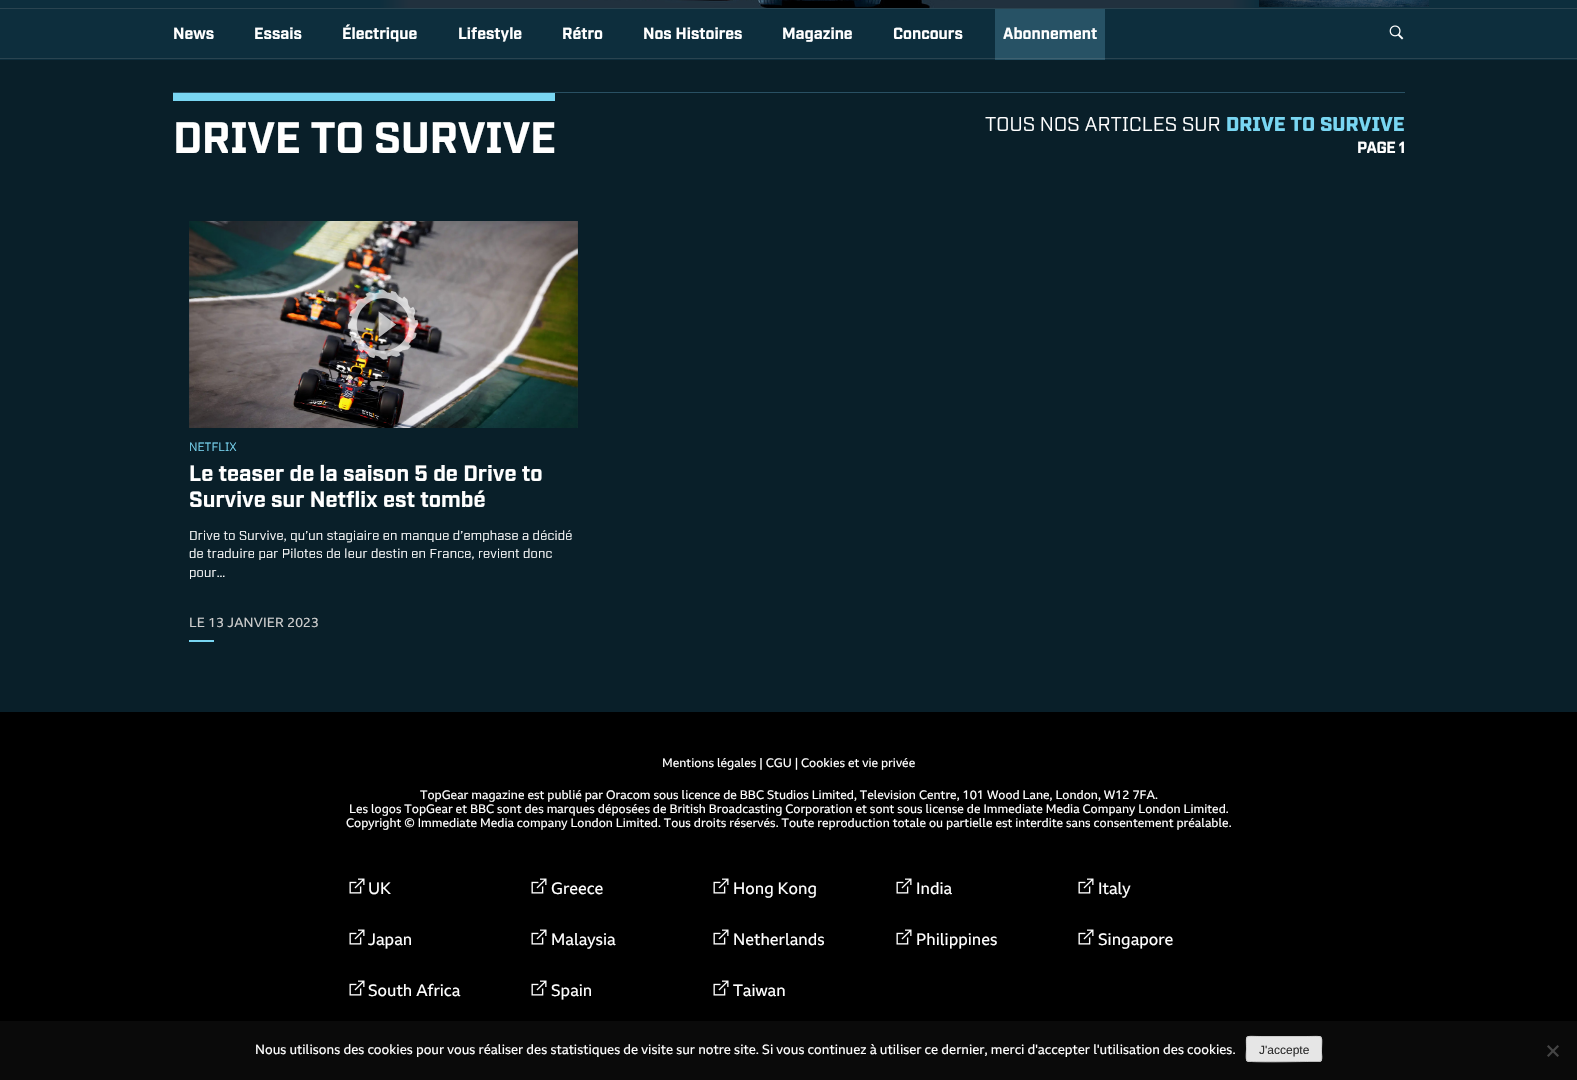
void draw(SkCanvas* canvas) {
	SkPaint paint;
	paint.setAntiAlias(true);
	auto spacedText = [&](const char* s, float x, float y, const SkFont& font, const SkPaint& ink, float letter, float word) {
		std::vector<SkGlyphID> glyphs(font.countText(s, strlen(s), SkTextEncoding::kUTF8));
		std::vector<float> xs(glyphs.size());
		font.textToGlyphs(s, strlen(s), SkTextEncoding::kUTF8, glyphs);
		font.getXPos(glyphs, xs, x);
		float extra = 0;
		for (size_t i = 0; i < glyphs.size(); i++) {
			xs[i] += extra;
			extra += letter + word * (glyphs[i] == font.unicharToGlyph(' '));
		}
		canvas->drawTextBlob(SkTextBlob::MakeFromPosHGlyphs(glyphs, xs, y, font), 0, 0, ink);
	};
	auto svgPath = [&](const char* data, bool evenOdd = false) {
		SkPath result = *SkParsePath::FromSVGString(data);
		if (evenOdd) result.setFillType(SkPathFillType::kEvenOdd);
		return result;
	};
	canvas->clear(0xff091f29);
	paint.setColor(0xff0d2e3d);
	canvas->drawRect(SkRect::MakeXYWH(0, 0, 1577, 8), paint);
	{
		const SkColor colors[] = {0xff21313e, 0xff0d2e3d};
		const float stops[] = {0, 1};
		const SkPoint ends[] = {{409, -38}, {379, -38}};
		paint.setShader(SkGradientShader::MakeLinear(ends, colors, stops, 2, SkTileMode::kClamp));
		paint.setAlpha(255);
	}
	canvas->drawRect(SkRect::MakeXYWH(379, 0, 30, 8), paint);
	canvas->drawImageRect(SkImages::DeferredFromEncodedData(SkData::MakeFromFileName("img1.png")), SkRect::MakeXYWH(409, 0, 820, 8), SkSamplingOptions());
	{
		const SkColor colors[] = {0xff21313e, 0xff0d2e3d};
		const float stops[] = {0, 1};
		const SkPoint ends[] = {{1229, -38}, {1259, -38}};
		paint.setShader(SkGradientShader::MakeLinear(ends, colors, stops, 2, SkTileMode::kClamp));
		paint.setAlpha(255);
	}
	canvas->drawRect(SkRect::MakeXYWH(1229, 0, 30, 8), paint);
	canvas->drawImageRect(SkImages::DeferredFromEncodedData(SkData::MakeFromFileName("img2.png")), SkRect::MakeXYWH(1259, 0, 170, 7), SkSamplingOptions());
	paint.setShader(nullptr);
	paint.setColor(0xff0d2e3d);
	canvas->drawRect(SkRect::MakeXYWH(0, 9, 1577, 51), paint);
	paint.setColor(0xff2a4450);
	canvas->drawRect(SkRect::MakeXYWH(0, 58, 1577, 1), paint);
	canvas->drawRect(SkRect::MakeXYWH(0, 8, 1577, 1), paint);
	SkFont f1(fontMgr->matchFamilyStyle("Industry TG", SkFontStyle::Bold()), 16);
	f1.setSubpixel(true);
	paint.setColor(0xffffffff);
	canvas->drawString("News", 173, 39, f1, paint);
	canvas->drawString("Essais", 254, 39, f1, paint);
	canvas->drawString("Électrique", 342, 39, f1, paint);
	canvas->drawString("Lifestyle", 458, 39, f1, paint);
	canvas->drawString("Rétro", 562, 39, f1, paint);
	canvas->drawString("Nos Histoires", 643, 39, f1, paint);
	canvas->drawString("Magazine", 782, 39, f1, paint);
	canvas->drawString("Concours", 893, 39, f1, paint);
	paint.setColor(0xff275265);
	canvas->drawRect(SkRect::MakeXYWH(995, 9, 110, 51), paint);
	paint.setColor(0xffffffff);
	canvas->drawString("Abonnement", 1003, 39, f1, paint);
	paint.setColor(0xff3f6170);
	canvas->drawRect(SkRect::MakeXYWH(995, 58, 110, 1), paint);
	canvas->drawImageRect(SkImages::DeferredFromEncodedData(SkData::MakeFromFileName("img3.png")), SkRect::MakeXYWH(1389, 25, 15, 15), SkSamplingOptions());
	paint.setColor(0xff295063);
	canvas->drawRect(SkRect::MakeXYWH(173, 92, 1232, 1), paint);
	paint.setColor(0xff79d6f2);
	canvas->drawRect(SkRect::MakeXYWH(173, 93, 382, 8), paint);
	SkFont f2(fontMgr->matchFamilyStyle("Industry TG", SkFontStyle::Bold()), 44);
	f2.setSubpixel(true);
	paint.setColor(0xffffffff);
	spacedText("DRIVE TO SURVIVE", 173, 153, f2, paint, -0.5, 0);
	SkFont f3(fontMgr->matchFamilyStyle("Industry TG", SkFontStyle::Normal()), 20);
	f3.setSubpixel(true);
	canvas->drawString("TOUS NOS ARTICLES SUR", 985, 131, f3, paint);
	SkFont f4(fontMgr->matchFamilyStyle("Industry TG", SkFontStyle(900, SkFontStyle::kNormal_Width, SkFontStyle::kUpright_Slant)), 20);
	f4.setSubpixel(true);
	paint.setColor(0xff79d6f2);
	canvas->drawString("DRIVE TO SURVIVE", 1226, 131, f4, paint);
	paint.setColor(0xffffffff);
	spacedText("PAGE 1", 1357, 153, f1, paint, -0.5, 0);
	canvas->drawImageRect(SkImages::DeferredFromEncodedData(SkData::MakeFromFileName("img4.png")), SkRect::MakeXYWH(189, 221, 389, 207), SkSamplingOptions());
	canvas->drawImageRect(SkImages::DeferredFromEncodedData(SkData::MakeFromFileName("img5.png")), SkRect::MakeXYWH(348, 289, 70, 71), SkSamplingOptions());
	SkFont f5(fontMgr->matchFamilyStyle("Industry TG", SkFontStyle::Normal()), 12);
	f5.setSubpixel(true);
	paint.setColor(0xff79d6f2);
	canvas->drawString("NETFLIX", 189, 451, f5, paint);
	SkFont f6(fontMgr->matchFamilyStyle("Industry TG", SkFontStyle::Bold()), 22);
	f6.setSubpixel(true);
	paint.setColor(0xffffffff);
	canvas->drawString("Le teaser de la saison 5 de Drive to", 189, 481, f6, paint);
	canvas->drawString("Survive sur Netflix est tombé", 189, 507, f6, paint);
	SkFont f7(fontMgr->matchFamilyStyle("Industry TG", SkFontStyle::Normal()), 13);
	f7.setSubpixel(true);
	spacedText("Drive to Survive, qu’un stagiaire en manque d’emphase a décidé", 189, 540, f7, paint, 0.2, 0);
	spacedText("de traduire par Pilotes de leur destin en France, revient donc", 189, 558, f7, paint, 0.2, 0);
	spacedText("pour…", 189, 577, f7, paint, 0.2, 0);
	SkFont f8(fontMgr->matchFamilyStyle("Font", SkFontStyle::Normal()), 13);
	f8.setSubpixel(true);
	paint.setColor(0xffcccccc);
	spacedText("LE 13 JANVIER 2023", 189, 627, f8, paint, 0.2, 0);
	paint.setColor(0xff79d6f2);
	canvas->drawRect(SkRect::MakeXYWH(189, 640, 25, 2), paint);
	paint.setColor(0xff000000);
	canvas->drawRect(SkRect::MakeXYWH(0, 712, 1577, 309), paint);
	SkFont f9(fontMgr->matchFamilyStyle("Font", SkFontStyle::Normal()), 12);
	f9.setSubpixel(true);
	paint.setColor(0xffffffff);
	canvas->drawString("Mentions légales | CGU | Cookies et vie privée", 662, 767, f9, paint);
	canvas->drawString("TopGear magazine est publié par Oracom sous licence de BBC Studios Limited, Television Centre, 101 Wood Lane, London, W12 7FA.", 420, 799, f9, paint);
	canvas->drawString("Les logos TopGear et BBC sont des marques déposées de British Broadcasting Corporation et sont sous license de Immediate Media Company London Limited.", 349, 813, f9, paint);
	canvas->drawString("Copyright © Immediate Media company London Limited. Tous droits réservés. Toute reproduction totale ou partielle est interdite sans consentement préalable.", 346, 827, f9, paint);
	canvas->drawImageRect(SkImages::DeferredFromEncodedData(SkData::MakeFromFileName("img6.png")), SkRect::MakeXYWH(349, 878, 16, 16), SkSamplingOptions());
	SkFont f10(fontMgr->matchFamilyStyle("Font", SkFontStyle::Normal()), 16);
	f10.setSubpixel(true);
	canvas->drawString("UK", 368, 894, f10, paint);
	canvas->drawImageRect(SkImages::DeferredFromEncodedData(SkData::MakeFromFileName("img6.png")), SkRect::MakeXYWH(531, 878, 16, 16), SkSamplingOptions());
	canvas->drawString("Greece", 551, 894, f10, paint);
	canvas->drawImageRect(SkImages::DeferredFromEncodedData(SkData::MakeFromFileName("img6.png")), SkRect::MakeXYWH(713, 878, 16, 16), SkSamplingOptions());
	canvas->drawString("Hong Kong", 733, 894, f10, paint);
	canvas->drawImageRect(SkImages::DeferredFromEncodedData(SkData::MakeFromFileName("img6.png")), SkRect::MakeXYWH(896, 878, 16, 16), SkSamplingOptions());
	canvas->drawString("India", 916, 894, f10, paint);
	canvas->drawImageRect(SkImages::DeferredFromEncodedData(SkData::MakeFromFileName("img6.png")), SkRect::MakeXYWH(1078, 878, 16, 16), SkSamplingOptions());
	canvas->drawString("Italy", 1098, 894, f10, paint);
	canvas->drawImageRect(SkImages::DeferredFromEncodedData(SkData::MakeFromFileName("img6.png")), SkRect::MakeXYWH(349, 929, 16, 16), SkSamplingOptions());
	canvas->drawString("Japan", 368, 945, f10, paint);
	canvas->drawImageRect(SkImages::DeferredFromEncodedData(SkData::MakeFromFileName("img6.png")), SkRect::MakeXYWH(531, 929, 16, 16), SkSamplingOptions());
	canvas->drawString("Malaysia", 551, 945, f10, paint);
	canvas->drawImageRect(SkImages::DeferredFromEncodedData(SkData::MakeFromFileName("img6.png")), SkRect::MakeXYWH(713, 929, 16, 16), SkSamplingOptions());
	canvas->drawString("Netherlands", 733, 945, f10, paint);
	canvas->drawImageRect(SkImages::DeferredFromEncodedData(SkData::MakeFromFileName("img6.png")), SkRect::MakeXYWH(896, 929, 16, 16), SkSamplingOptions());
	canvas->drawString("Philippines", 916, 945, f10, paint);
	canvas->drawImageRect(SkImages::DeferredFromEncodedData(SkData::MakeFromFileName("img6.png")), SkRect::MakeXYWH(1078, 929, 16, 16), SkSamplingOptions());
	canvas->drawString("Singapore", 1098, 945, f10, paint);
	canvas->drawImageRect(SkImages::DeferredFromEncodedData(SkData::MakeFromFileName("img6.png")), SkRect::MakeXYWH(349, 980, 16, 16), SkSamplingOptions());
	canvas->drawString("South Africa", 368, 996, f10, paint);
	canvas->drawImageRect(SkImages::DeferredFromEncodedData(SkData::MakeFromFileName("img6.png")), SkRect::MakeXYWH(531, 980, 16, 16), SkSamplingOptions());
	canvas->drawString("Spain", 551, 996, f10, paint);
	canvas->drawImageRect(SkImages::DeferredFromEncodedData(SkData::MakeFromFileName("img6.png")), SkRect::MakeXYWH(713, 980, 16, 16), SkSamplingOptions());
	canvas->drawString("Taiwan", 733, 996, f10, paint);
	paint.setColor(0xff0a0a0a);
	canvas->drawRect(SkRect::MakeXYWH(0, 1021, 1577, 59), paint);
	paint.setColor(0xffffffff);
	canvas->drawString("Nous utilisons des cookies pour vous réaliser des statistiques de visite sur notre site. Si vous continuez à utiliser ce dernier, merci d'accepter l'utilisation des cookies.", 255, 1054, f8, paint);
	paint.setColor(0xffe6e6e6);
	canvas->drawRoundRect(SkRect::MakeXYWH(1246, 1036, 76, 26), 3, 3, paint);
	paint.setStroke(true);
	paint.setStrokeWidth(1);
	paint.setColor(0xffbbbbbb);
	canvas->drawPath(svgPath("M1321 1061L1319 1061.5H1307.5C1300.5 1061.5 1249.5 1062.5 1247.5 1061H1247"), paint);
	paint.setColor(0xffcccccc);
	canvas->drawPath(svgPath("M1247 1061C1245.5 1059 1246.5 1051.5 1246.5 1049C1246.5 1034 1244 1036.5 1260.5 1036.5H1307.5C1325 1036.5 1321.5 1034 1321.5 1052.5C1321.5 1054.5 1322.5 1059 1321 1061"), paint);
	SkFont f11(fontMgr->matchFamilyStyle("Liberation Sans", SkFontStyle::Normal()), 12);
	f11.setSubpixel(true);
	paint.setStroke(false);
	paint.setColor(0xff2e2e2e);
	canvas->drawString("J'accepte", 1259, 1054, f11, paint);
	paint.setColor(0xff454545);
	canvas->drawPath(svgPath("M1557.5 1045L1559 1046.5L1548.5 1057L1547 1055.5Z"), paint);
	canvas->drawPath(svgPath("M1547 1046.5L1548.5 1045L1559 1055.5L1557.5 1057Z"), paint);
}
